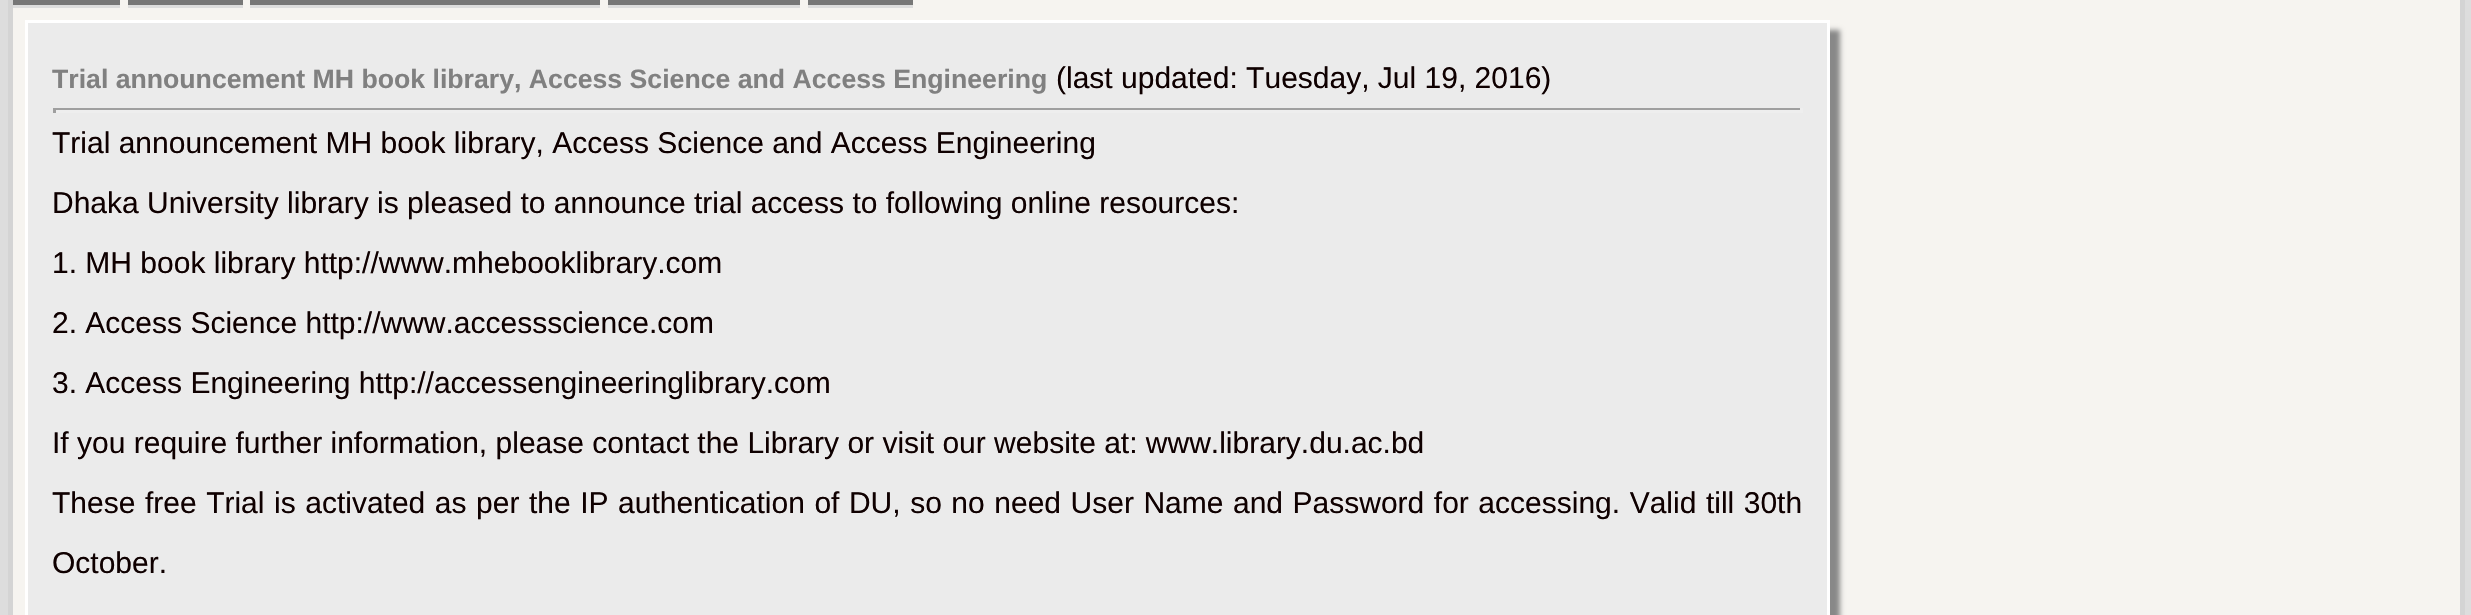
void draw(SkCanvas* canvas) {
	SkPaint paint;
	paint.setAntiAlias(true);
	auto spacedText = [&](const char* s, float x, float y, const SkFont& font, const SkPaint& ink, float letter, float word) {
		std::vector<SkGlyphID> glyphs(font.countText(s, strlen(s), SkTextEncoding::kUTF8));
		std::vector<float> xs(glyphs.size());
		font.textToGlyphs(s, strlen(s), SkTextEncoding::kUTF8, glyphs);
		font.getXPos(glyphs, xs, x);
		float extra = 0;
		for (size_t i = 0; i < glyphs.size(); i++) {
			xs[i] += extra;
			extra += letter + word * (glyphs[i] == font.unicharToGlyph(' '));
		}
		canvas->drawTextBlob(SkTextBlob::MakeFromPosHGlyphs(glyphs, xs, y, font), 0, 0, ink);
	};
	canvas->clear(0xffdddddd);
	paint.setColor(0xfff6f4f0);
	canvas->drawRect(SkRect::MakeXYWH(10.5, -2.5, 2452, 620), paint);
	paint.setStroke(true);
	paint.setStrokeWidth(5);
	paint.setColor(0xffd4d4d4);
	canvas->drawRect(SkRect::MakeXYWH(10.5, -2.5, 2452, 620), paint);
	paint.setStroke(false);
	paint.setColor(0xffdddddd);
	canvas->drawRect(SkRect::MakeXYWH(13, 5, 107, 3), paint);
	paint.setColor(0xff777777);
	canvas->drawRect(SkRect::MakeXYWH(13, 0, 107, 5), paint);
	paint.setColor(0xffdddddd);
	canvas->drawRect(SkRect::MakeXYWH(128, 5, 115, 3), paint);
	paint.setColor(0xff777777);
	canvas->drawRect(SkRect::MakeXYWH(128, 0, 115, 5), paint);
	paint.setColor(0xffdddddd);
	canvas->drawRect(SkRect::MakeXYWH(250, 5, 350, 3), paint);
	paint.setColor(0xff777777);
	canvas->drawRect(SkRect::MakeXYWH(250, 0, 350, 5), paint);
	paint.setColor(0xffdddddd);
	canvas->drawRect(SkRect::MakeXYWH(608, 5, 192, 3), paint);
	paint.setColor(0xff777777);
	canvas->drawRect(SkRect::MakeXYWH(608, 0, 192, 5), paint);
	paint.setColor(0xffdddddd);
	canvas->drawRect(SkRect::MakeXYWH(808, 5, 105, 3), paint);
	paint.setColor(0xff777777);
	canvas->drawRect(SkRect::MakeXYWH(808, 0, 105, 5), paint);
	paint.setColor(0xff888888);
	paint.setMaskFilter(SkMaskFilter::MakeBlur(kNormal_SkBlurStyle, 2.5));
	canvas->drawRect(SkRect::MakeXYWH(35, 30, 1805, 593), paint);
	paint.setMaskFilter(nullptr);
	paint.setColor(0xffebebeb);
	canvas->drawRect(SkRect::MakeXYWH(26.5, 21.5, 1802, 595), paint);
	paint.setStroke(true);
	paint.setStrokeWidth(3);
	paint.setColor(0xffffffff);
	canvas->drawRect(SkRect::MakeXYWH(26.5, 21.5, 1802, 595), paint);
	SkFont f1(fontMgr->matchFamilyStyle("Liberation Sans", SkFontStyle::Bold()), 26.65);
	f1.setSubpixel(true);
	paint.setStroke(false);
	paint.setColor(0xff808080);
	canvas->drawString("Trial announcement MH book library, Access Science and Access Engineering", 52, 88, f1, paint);
	SkFont f2(fontMgr->matchFamilyStyle("Liberation Sans", SkFontStyle::Normal()), 30);
	f2.setSubpixel(true);
	paint.setColor(0xff0f0000);
	canvas->drawString("(last updated: Tuesday, Jul 19, 2016)", 1056, 88, f2, paint);
	paint.setColor(0xff9f9f9f);
	canvas->drawRect(SkRect::MakeXYWH(53, 108, 1750, 2), paint);
	paint.setColor(0xffeeeeee);
	canvas->drawRect(SkRect::MakeXYWH(1800, 108, 3, 5), paint);
	canvas->drawRect(SkRect::MakeXYWH(53, 110, 1750, 3), paint);
	paint.setColor(0xff9f9f9f);
	canvas->drawRect(SkRect::MakeXYWH(53, 108, 3, 5), paint);
	paint.setColor(0xff0f0000);
	canvas->drawString("Trial announcement MH book library, Access Science and Access Engineering", 52, 153, f2, paint);
	canvas->drawString("Dhaka University library is pleased to announce trial access to following online resources:", 52, 213, f2, paint);
	canvas->drawString("1. MH book library http://www.mhebooklibrary.com", 52, 273, f2, paint);
	canvas->drawString("2. Access Science http://www.accessscience.com", 52, 333, f2, paint);
	canvas->drawString("3. Access Engineering http://accessengineeringlibrary.com", 52, 393, f2, paint);
	canvas->drawString("If you require further information, please contact the Library or visit our website at: www.library.du.ac.bd", 52, 453, f2, paint);
	spacedText("These free Trial is activated as per the IP authentication of DU, so no need User Name and Password for accessing. Valid till 30th", 52, 513, f2, paint, 0, 1.2);
	canvas->drawString("October.", 52, 573, f2, paint);
}
